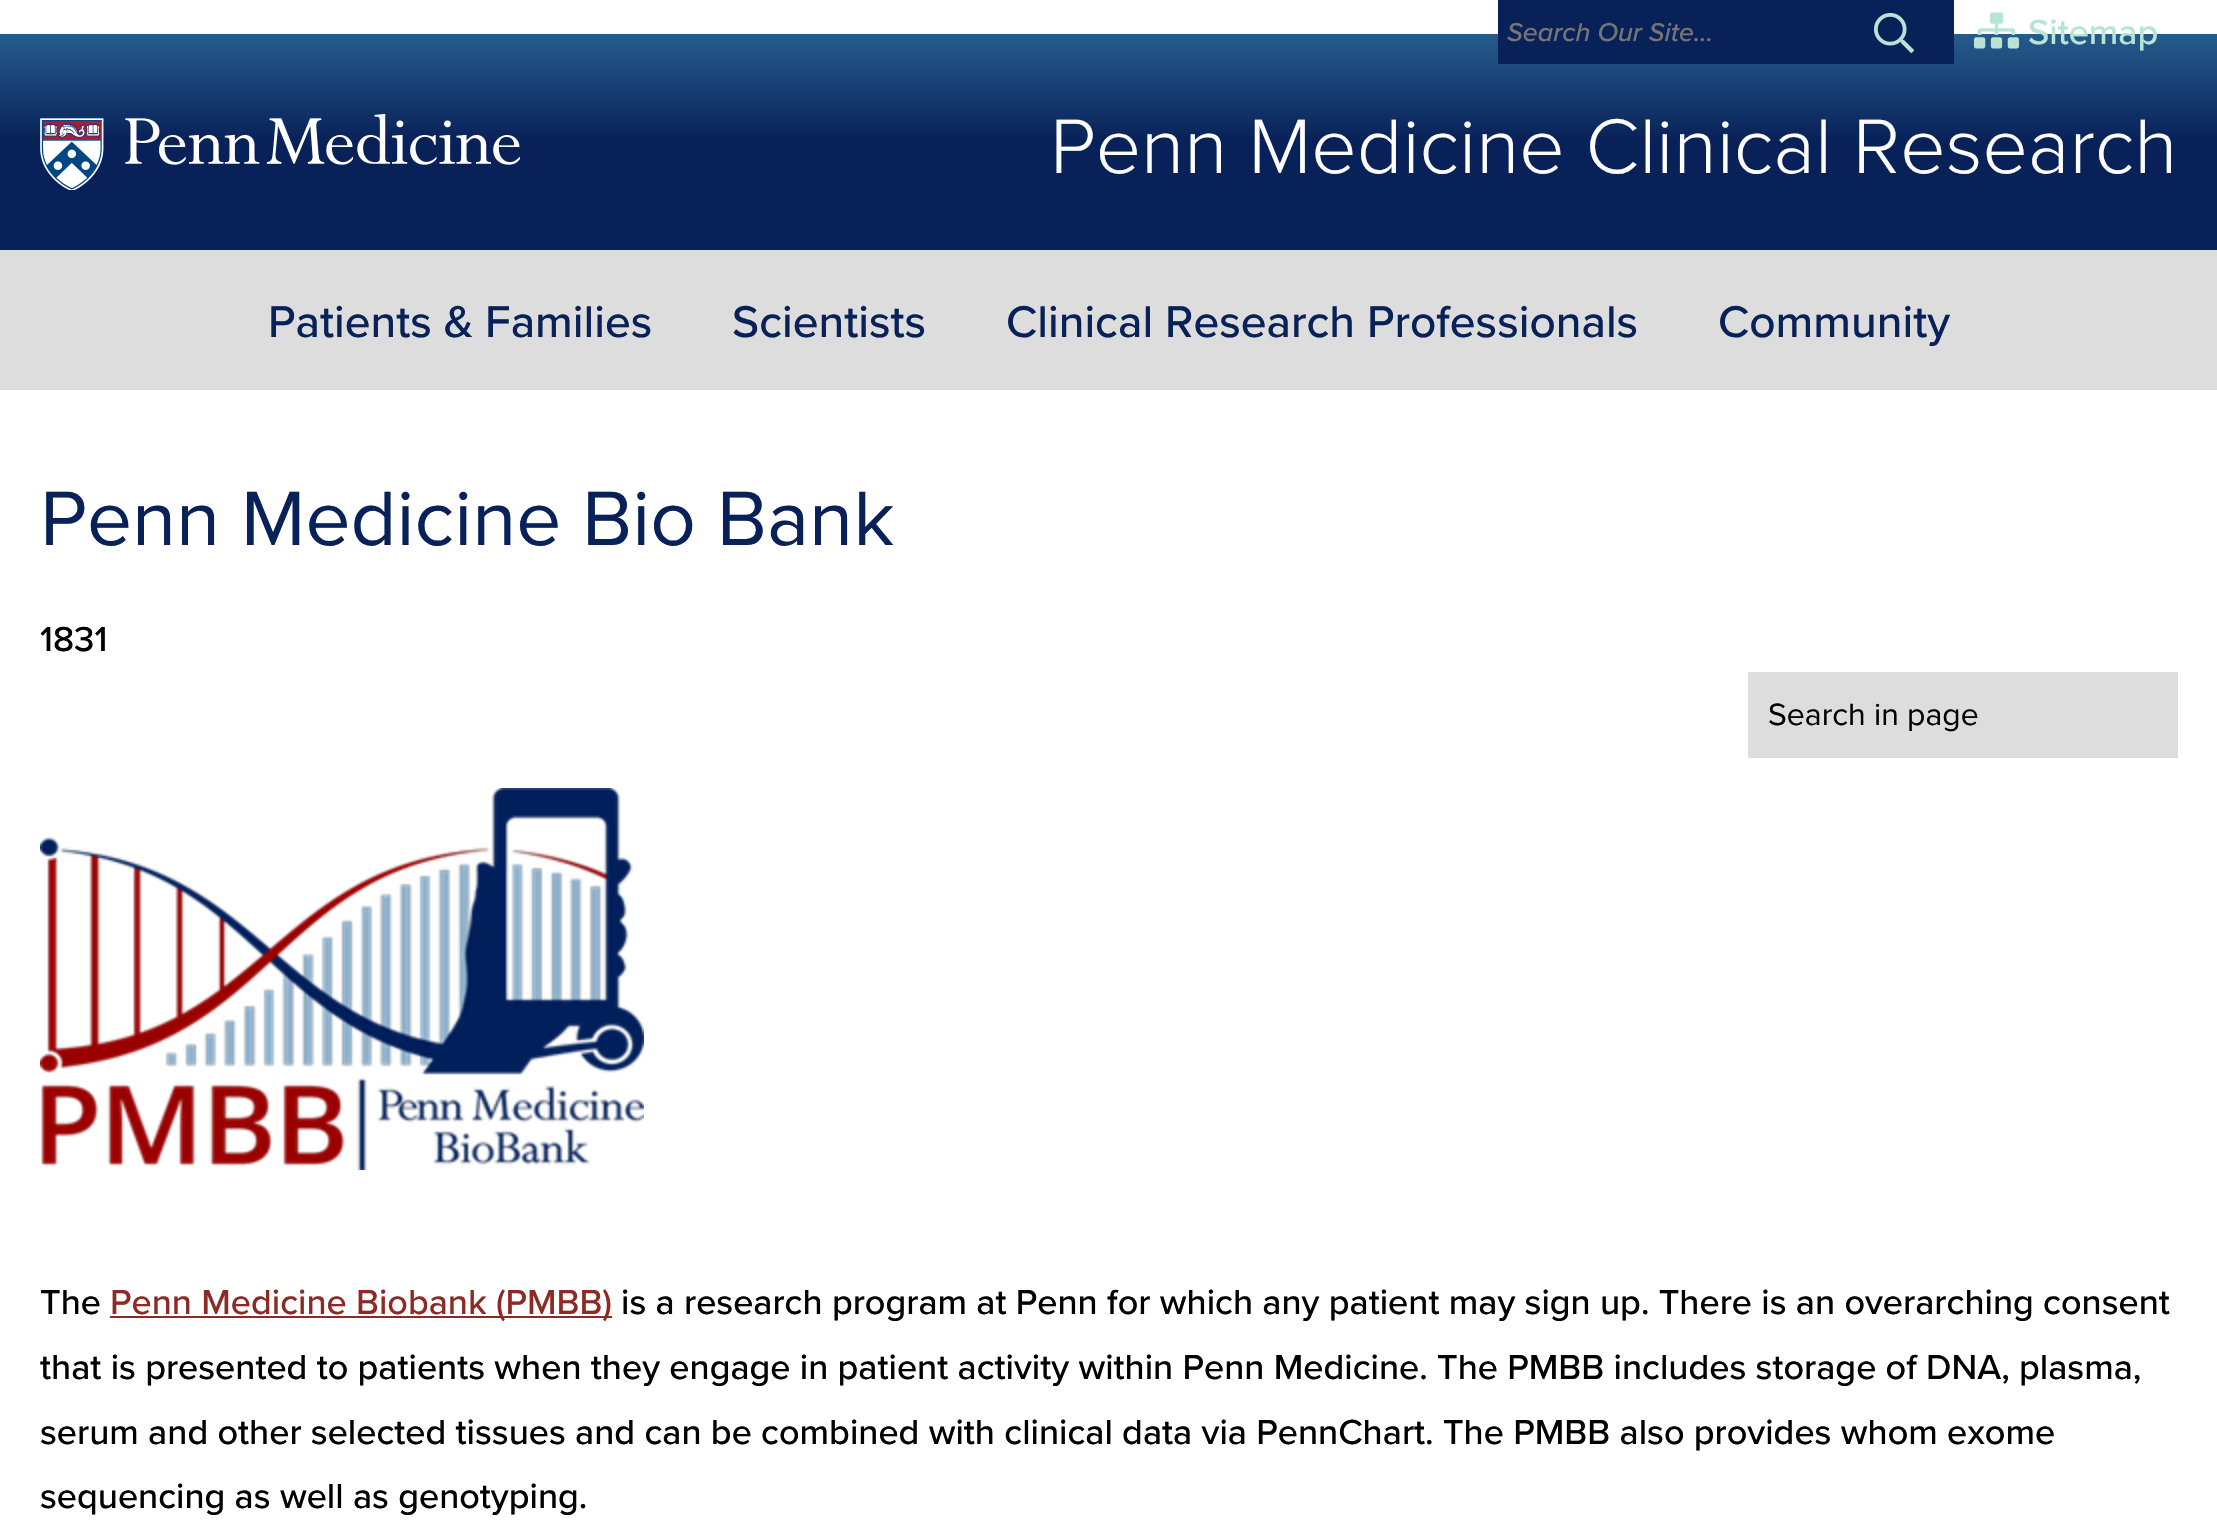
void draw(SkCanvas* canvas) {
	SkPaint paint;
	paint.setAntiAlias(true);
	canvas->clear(0xffffffff);
	{
		const SkColor colors[] = {0xff255c8c, 0xff082158};
		const float stops[] = {0, 0.5};
		const SkPoint ends[] = {{1109, 34}, {1109, 250}};
		paint.setShader(SkGradientShader::MakeLinear(ends, colors, stops, 2, SkTileMode::kClamp));
		paint.setAlpha(255);
	}
	canvas->drawRect(SkRect::MakeXYWH(0, 34, 2217, 216), paint);
	paint.setShader(nullptr);
	paint.setColor(0xff082158);
	canvas->drawRect(SkRect::MakeXYWH(1498, 0, 456, 64), paint);
	SkFont f1(fontMgr->matchFamilyStyle("Proxima Nova", SkFontStyle(500, SkFontStyle::kNormal_Width, SkFontStyle::kItalic_Slant)), 26.75);
	f1.setSubpixel(true);
	paint.setColor(0xff757575);
	canvas->drawString("Search Our Site...", 1507, 41, f1, paint);
	canvas->drawImageRect(SkImages::DeferredFromEncodedData(SkData::MakeFromFileName("img1.png")), SkRect::MakeXYWH(1874, 13, 40, 40), SkSamplingOptions());
	canvas->drawImageRect(SkImages::DeferredFromEncodedData(SkData::MakeFromFileName("img2.png")), SkRect::MakeXYWH(1974, 12, 45, 37), SkSamplingOptions());
	SkFont f2(fontMgr->matchFamilyStyle("Proxima Nova", SkFontStyle(500, SkFontStyle::kNormal_Width, SkFontStyle::kUpright_Slant)), 36);
	f2.setSubpixel(true);
	paint.setColor(0xffb8e4d7);
	canvas->drawString("Sitemap", 2028, 44, f2, paint);
	canvas->drawImageRect(SkImages::DeferredFromEncodedData(SkData::MakeFromFileName("img3.png")), SkRect::MakeXYWH(40, 114, 480, 76), SkSamplingOptions());
	SkFont f3(fontMgr->matchFamilyStyle("Proxima Nova", SkFontStyle(300, SkFontStyle::kNormal_Width, SkFontStyle::kUpright_Slant)), 80);
	f3.setSubpixel(true);
	paint.setColor(0xffffffff);
	canvas->drawString("Penn Medicine Clinical Research", 1050, 173, f3, paint);
	paint.setColor(0xffdddddd);
	canvas->drawRect(SkRect::MakeXYWH(0, 250, 2217, 140), paint);
	SkFont f4(fontMgr->matchFamilyStyle("Proxima Nova", SkFontStyle(500, SkFontStyle::kNormal_Width, SkFontStyle::kUpright_Slant)), 46);
	f4.setSubpixel(true);
	paint.setColor(0xff082158);
	canvas->drawString("Patients & Families", 268, 337, f4, paint);
	canvas->drawString("Scientists", 732, 337, f4, paint);
	canvas->drawString("Clinical Research Professionals", 1006, 337, f4, paint);
	canvas->drawString("Community", 1718, 337, f4, paint);
	SkFont f5(fontMgr->matchFamilyStyle("Proxima Nova", SkFontStyle::Normal()), 80);
	f5.setSubpixel(true);
	canvas->drawString("Penn Medicine Bio Bank", 40, 545, f5, paint);
	paint.setColor(0xff000000);
	canvas->drawString("1831", 40, 651, f2, paint);
	paint.setColor(0xffdddddd);
	canvas->drawRect(SkRect::MakeXYWH(1748, 672, 430, 86), paint);
	SkFont f6(fontMgr->matchFamilyStyle("Proxima Nova", SkFontStyle::Normal()), 32);
	f6.setSubpixel(true);
	paint.setColor(0xff000000);
	canvas->drawString("Search in page", 1768, 725, f6, paint);
	canvas->drawImageRect(SkImages::DeferredFromEncodedData(SkData::MakeFromFileName("img4.png")), SkRect::MakeXYWH(40, 788, 604, 382), SkSamplingOptions());
	canvas->drawString("The", 40, 1314, f2, paint);
	paint.setColor(0xff8d2a25);
	canvas->drawRect(SkRect::MakeXYWH(110, 1316, 502, 2), paint);
	canvas->drawString("Penn Medicine Biobank (PMBB)", 110, 1314, f2, paint);
	paint.setColor(0xff000000);
	canvas->drawString("is a research program at Penn for which any patient may sign up. There is an overarching consent", 621, 1314, f2, paint);
	canvas->drawString("that is presented to patients when they engage in patient activity within Penn Medicine. The PMBB includes storage of DNA, plasma,", 40, 1379, f2, paint);
	canvas->drawString("serum and other selected tissues and can be combined with clinical data via PennChart. The PMBB also provides whom exome", 40, 1444, f2, paint);
	canvas->drawString("sequencing as well as genotyping.", 40, 1508, f2, paint);
}
